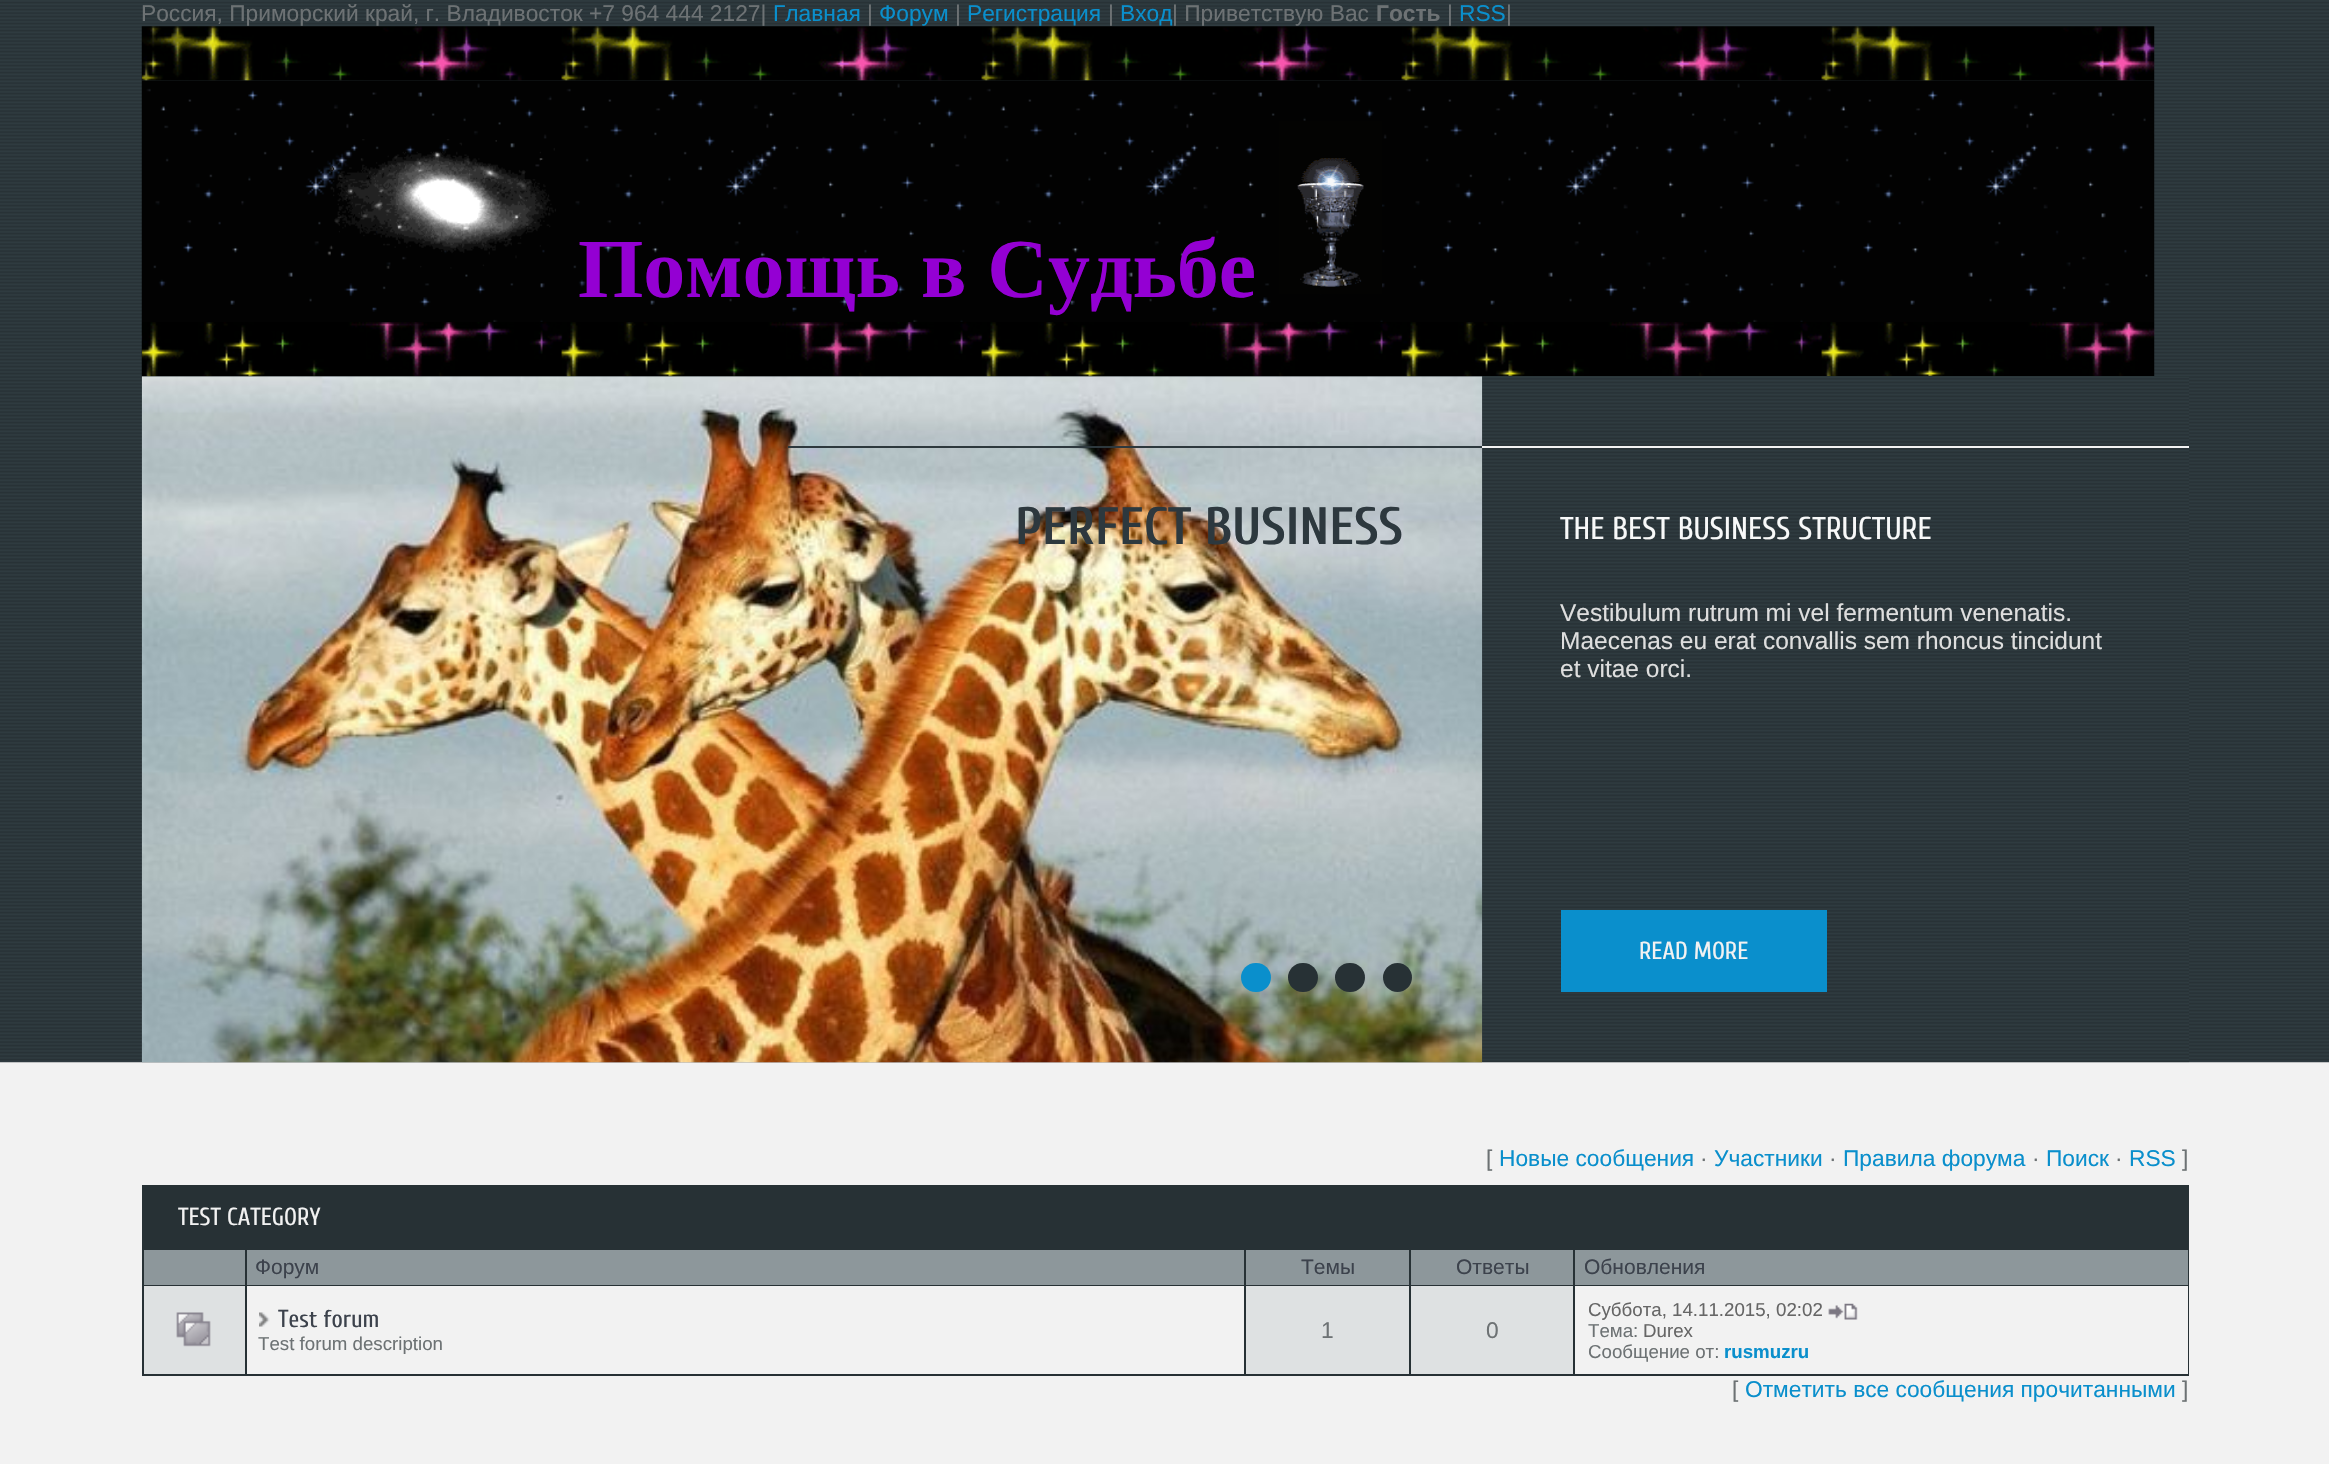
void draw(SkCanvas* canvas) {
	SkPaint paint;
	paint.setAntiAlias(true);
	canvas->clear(0xfff2f2f2);
	canvas->drawImageRect(SkImages::DeferredFromEncodedData(SkData::MakeFromFileName("img1.png")), SkRect::MakeXYWH(0, 0, 2329, 1063), SkSamplingOptions());
	SkFont f1(fontMgr->matchFamilyStyle("Liberation Sans", SkFontStyle::Normal()), 22.75);
	f1.setSubpixel(true);
	paint.setColor(0xff6d7274);
	canvas->drawString("Россия, Приморский край, г. Владивосток +7 964 444 2127|", 141, 21, f1, paint);
	paint.setColor(0xff0a8fcc);
	canvas->drawString("Главная", 773, 21, f1, paint);
	paint.setColor(0xff6d7274);
	canvas->drawString("|", 867, 21, f1, paint);
	paint.setColor(0xff0a8fcc);
	canvas->drawString("Форум", 879, 21, f1, paint);
	paint.setColor(0xff6d7274);
	canvas->drawString("|", 955, 21, f1, paint);
	paint.setColor(0xff0a8fcc);
	canvas->drawString("Регистрация", 967, 21, f1, paint);
	paint.setColor(0xff6d7274);
	canvas->drawString("|", 1108, 21, f1, paint);
	paint.setColor(0xff0a8fcc);
	canvas->drawString("Вход", 1120, 21, f1, paint);
	paint.setColor(0xff6d7274);
	canvas->drawString("| Приветствую Вас", 1172, 21, f1, paint);
	SkFont f2(fontMgr->matchFamilyStyle("Liberation Sans", SkFontStyle::Bold()), 22.75);
	f2.setSubpixel(true);
	canvas->drawString("Гость", 1376, 21, f2, paint);
	canvas->drawString("|", 1447, 21, f1, paint);
	paint.setColor(0xff0a8fcc);
	canvas->drawString("RSS", 1459, 21, f1, paint);
	paint.setColor(0xff6d7274);
	canvas->drawString("|", 1506, 21, f1, paint);
	canvas->drawImageRect(SkImages::DeferredFromEncodedData(SkData::MakeFromFileName("img2.png")), SkRect::MakeXYWH(141, 26, 2014, 55), SkSamplingOptions());
	canvas->drawImageRect(SkImages::DeferredFromEncodedData(SkData::MakeFromFileName("img3.png")), SkRect::MakeXYWH(141, 80, 2014, 242), SkSamplingOptions());
	canvas->drawImageRect(SkImages::DeferredFromEncodedData(SkData::MakeFromFileName("img4.png")), SkRect::MakeXYWH(327, 139, 229, 130), SkSamplingOptions());
	SkFont f3(fontMgr->matchFamilyStyle("Liberation Serif", SkFontStyle::Bold()), 84);
	f3.setSubpixel(true);
	paint.setColor(0xff9400d3);
	canvas->drawString("Помощь в Судьбе", 578, 297, f3, paint);
	canvas->drawImageRect(SkImages::DeferredFromEncodedData(SkData::MakeFromFileName("img5.png")), SkRect::MakeXYWH(1279, 120, 104, 174), SkSamplingOptions());
	canvas->drawImageRect(SkImages::DeferredFromEncodedData(SkData::MakeFromFileName("img6.png")), SkRect::MakeXYWH(141, 322, 2014, 55), SkSamplingOptions());
	paint.setColor(0xff273135);
	canvas->drawRect(SkRect::MakeXYWH(1482, 376, 707, 686), paint);
	canvas->drawImageRect(SkImages::DeferredFromEncodedData(SkData::MakeFromFileName("img8.png")), SkRect::MakeXYWH(1482, 376, 707, 687), SkSamplingOptions());
	canvas->drawImageRect(SkImages::DeferredFromEncodedData(SkData::MakeFromFileName("img7.png")), SkRect::MakeXYWH(141, 376, 1342, 687), SkSamplingOptions());
	paint.setColor(0xff2d383d);
	canvas->drawRect(SkRect::MakeXYWH(788, 446, 694, 2), paint);
	SkFont f4(fontMgr->matchFamilyStyle("Cuprum", SkFontStyle::Bold()), 52.5);
	f4.setSubpixel(true);
	paint.setColor(0xff2d383e);
	canvas->drawString("PERFECT BUSINESS", 1015, 544, f4, paint);
	paint.setColor(0xfff2f2f2);
	canvas->drawRect(SkRect::MakeXYWH(1482, 446, 707, 2), paint);
	SkFont f5(fontMgr->matchFamilyStyle("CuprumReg", SkFontStyle::Normal()), 31.5);
	f5.setSubpixel(true);
	paint.setColor(0xfff8f9f9);
	canvas->drawString("THE BEST BUSINESS STRUCTURE", 1560, 539, f5, paint);
	SkFont f6(fontMgr->matchFamilyStyle("Liberation Sans", SkFontStyle::Normal()), 24.5);
	f6.setSubpixel(true);
	paint.setColor(0xffdedede);
	canvas->drawString("Vestibulum rutrum mi vel fermentum venenatis.", 1560, 621, f6, paint);
	canvas->drawString("Maecenas eu erat convallis sem rhoncus tincidunt", 1560, 649, f6, paint);
	canvas->drawString("et vitae orci.", 1560, 677, f6, paint);
	paint.setColor(0xff0a8fcc);
	canvas->drawRect(SkRect::MakeXYWH(1561, 910, 266, 82), paint);
	SkFont f7(fontMgr->matchFamilyStyle("CuprumReg", SkFontStyle::Normal()), 24.5);
	f7.setSubpixel(true);
	paint.setColor(0xfff2f2f2);
	canvas->drawString("READ MORE", 1639, 959, f7, paint);
	paint.setColor(0xff0a8fcc);
	canvas->drawRoundRect(SkRect::MakeXYWH(1241, 963, 30, 29), 14.5, 14.5, paint);
	paint.setColor(0xff273135);
	canvas->drawRoundRect(SkRect::MakeXYWH(1288, 963, 30, 29), 14.5, 14.5, paint);
	canvas->drawRoundRect(SkRect::MakeXYWH(1335, 963, 30, 29), 14.5, 14.5, paint);
	canvas->drawCircle(1397.5, 977.5, 14.5, paint);
	paint.setColor(0xff6d7274);
	canvas->drawString("[", 1486, 1166, f1, paint);
	paint.setColor(0xff0a8fcc);
	canvas->drawString("Новые сообщения", 1499, 1166, f1, paint);
	paint.setColor(0xff6d7274);
	canvas->drawString("·", 1700, 1166, f1, paint);
	paint.setColor(0xff0a8fcc);
	canvas->drawString("Участники", 1714, 1166, f1, paint);
	paint.setColor(0xff6d7274);
	canvas->drawString("·", 1829, 1166, f1, paint);
	paint.setColor(0xff0a8fcc);
	canvas->drawString("Правила форума", 1843, 1166, f1, paint);
	paint.setColor(0xff6d7274);
	canvas->drawString("·", 2032, 1166, f1, paint);
	paint.setColor(0xff0a8fcc);
	canvas->drawString("Поиск", 2046, 1166, f1, paint);
	paint.setColor(0xff6d7274);
	canvas->drawString("·", 2115, 1166, f1, paint);
	paint.setColor(0xff0a8fcc);
	canvas->drawString("RSS", 2129, 1166, f1, paint);
	paint.setColor(0xff6d7274);
	canvas->drawString("]", 2182, 1166, f1, paint);
	paint.setColor(0xff273135);
	canvas->drawRect(SkRect::MakeXYWH(142, 1185, 2047, 191), paint);
	paint.setColor(0xfff2f2f2);
	canvas->drawString("TEST CATEGORY", 178, 1225, f7, paint);
	paint.setColor(0xff8d979b);
	canvas->drawRect(SkRect::MakeXYWH(144, 1250, 101, 35), paint);
	canvas->drawRect(SkRect::MakeXYWH(247, 1250, 997, 35), paint);
	SkFont f8(fontMgr->matchFamilyStyle("Liberation Sans", SkFontStyle::Normal()), 21);
	f8.setSubpixel(true);
	paint.setColor(0xff3c424c);
	canvas->drawString("Форум", 255, 1274, f8, paint);
	paint.setColor(0xff8d979b);
	canvas->drawRect(SkRect::MakeXYWH(1246, 1250, 163, 35), paint);
	paint.setColor(0xff3c424c);
	canvas->drawString("Темы", 1301, 1274, f8, paint);
	paint.setColor(0xff8d979b);
	canvas->drawRect(SkRect::MakeXYWH(1411, 1250, 162, 35), paint);
	paint.setColor(0xff3c424c);
	canvas->drawString("Ответы", 1456, 1274, f8, paint);
	paint.setColor(0xff8d979b);
	canvas->drawRect(SkRect::MakeXYWH(1575, 1250, 613, 35), paint);
	paint.setColor(0xff3c424c);
	canvas->drawString("Обновления", 1584, 1274, f8, paint);
	paint.setColor(0xffdee1e2);
	canvas->drawRect(SkRect::MakeXYWH(144, 1286, 101, 88), paint);
	canvas->drawImageRect(SkImages::DeferredFromEncodedData(SkData::MakeFromFileName("img9.png")), SkRect::MakeXYWH(176, 1312, 35, 35), SkSamplingOptions());
	paint.setColor(0xfff2f2f2);
	canvas->drawRect(SkRect::MakeXYWH(247, 1286, 997, 88), paint);
	canvas->drawImageRect(SkImages::DeferredFromEncodedData(SkData::MakeFromFileName("img10.png")), SkRect::MakeXYWH(259, 1312, 11, 15), SkSamplingOptions());
	paint.setColor(0xff3c424c);
	canvas->drawString("Test forum", 278, 1327, f7, paint);
	SkFont f9(fontMgr->matchFamilyStyle("Liberation Sans", SkFontStyle::Normal()), 18.7);
	f9.setSubpixel(true);
	paint.setColor(0xff6d7274);
	canvas->drawString("Test forum description", 258, 1350, f9, paint);
	paint.setColor(0xffdee1e2);
	canvas->drawRect(SkRect::MakeXYWH(1246, 1286, 163, 88), paint);
	paint.setColor(0xff6d7274);
	canvas->drawString("1", 1321, 1338, f1, paint);
	paint.setColor(0xffdee1e2);
	canvas->drawRect(SkRect::MakeXYWH(1411, 1286, 162, 88), paint);
	paint.setColor(0xff6d7274);
	canvas->drawString("0", 1486, 1338, f1, paint);
	paint.setColor(0xfff2f2f2);
	canvas->drawRect(SkRect::MakeXYWH(1575, 1286, 613, 88), paint);
	paint.setColor(0xff666666);
	canvas->drawString("Суббота, 14.11.2015, 02:02", 1588, 1316, f9, paint);
	canvas->drawImageRect(SkImages::DeferredFromEncodedData(SkData::MakeFromFileName("img11.png")), SkRect::MakeXYWH(1828, 1303, 30, 17), SkSamplingOptions());
	paint.setColor(0xff6d7274);
	canvas->drawString("Тема:", 1588, 1337, f9, paint);
	paint.setColor(0xff666666);
	canvas->drawString("Durex", 1643, 1337, f9, paint);
	paint.setColor(0xff6d7274);
	canvas->drawString("Сообщение от:", 1588, 1358, f9, paint);
	SkFont f10(fontMgr->matchFamilyStyle("Liberation Sans", SkFontStyle::Bold()), 18.7);
	f10.setSubpixel(true);
	paint.setColor(0xff0a8fcc);
	canvas->drawString("rusmuzru", 1724, 1358, f10, paint);
	paint.setColor(0xff6d7274);
	canvas->drawString("[", 1732, 1397, f1, paint);
	paint.setColor(0xff0a8fcc);
	canvas->drawString("Отметить все сообщения прочитанными", 1745, 1397, f1, paint);
	paint.setColor(0xff6d7274);
	canvas->drawString("]", 2182, 1397, f1, paint);
}
